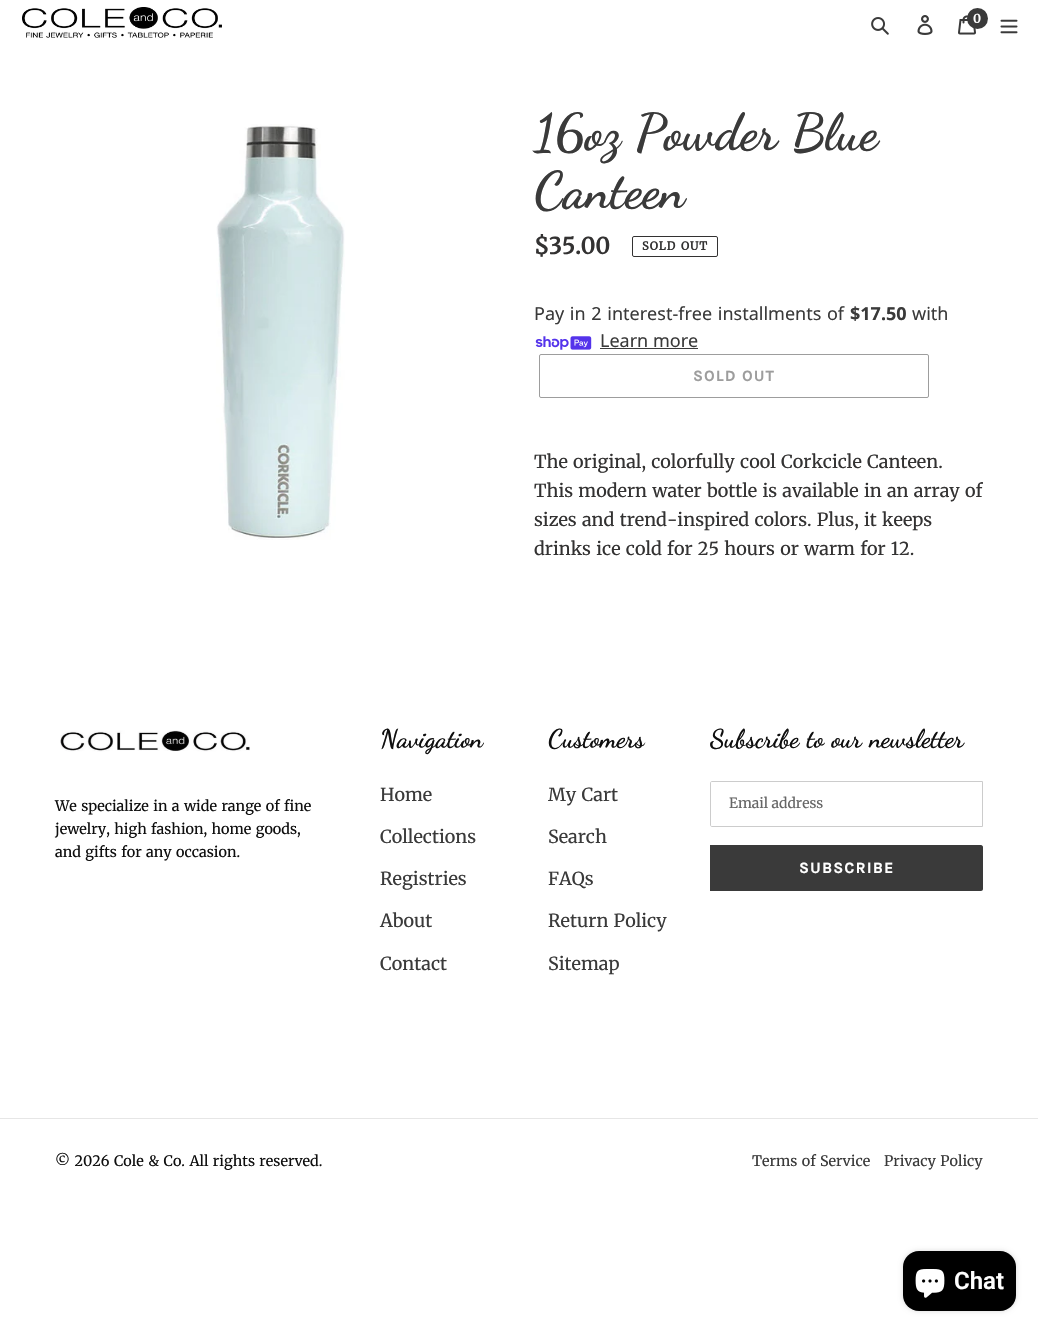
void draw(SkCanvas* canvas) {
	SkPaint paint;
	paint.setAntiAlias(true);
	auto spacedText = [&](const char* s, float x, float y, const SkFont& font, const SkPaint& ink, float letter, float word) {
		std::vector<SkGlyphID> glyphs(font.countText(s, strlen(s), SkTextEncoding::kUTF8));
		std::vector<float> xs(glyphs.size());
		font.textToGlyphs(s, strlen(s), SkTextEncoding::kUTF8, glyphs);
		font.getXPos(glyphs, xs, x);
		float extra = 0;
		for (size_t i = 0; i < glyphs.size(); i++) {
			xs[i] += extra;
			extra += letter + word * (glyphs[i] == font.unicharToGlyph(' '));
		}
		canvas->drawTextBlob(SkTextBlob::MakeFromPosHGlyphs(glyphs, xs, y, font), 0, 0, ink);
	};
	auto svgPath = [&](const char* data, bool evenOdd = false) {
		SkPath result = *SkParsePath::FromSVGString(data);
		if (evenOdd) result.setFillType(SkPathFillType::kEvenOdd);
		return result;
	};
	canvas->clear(0xffffffff);
	canvas->drawImageRect(SkImages::DeferredFromEncodedData(SkData::MakeFromFileName("img1.png")), SkRect::MakeXYWH(22, 7, 200, 31), SkSamplingOptions());
	canvas->drawImageRect(SkImages::DeferredFromEncodedData(SkData::MakeFromFileName("img2.png")), SkRect::MakeXYWH(871, 17, 18, 18), SkSamplingOptions());
	canvas->drawImageRect(SkImages::DeferredFromEncodedData(SkData::MakeFromFileName("img3.png")), SkRect::MakeXYWH(917, 15, 16, 20), SkSamplingOptions());
	canvas->drawImageRect(SkImages::DeferredFromEncodedData(SkData::MakeFromFileName("img4.png")), SkRect::MakeXYWH(958, 15, 18, 20), SkSamplingOptions());
	paint.setColor(0xff3a3a3a);
	canvas->drawCircle(977.5, 18.5, 10.5, paint);
	SkFont f1(fontMgr->matchFamilyStyle("Merriweather", SkFontStyle::Bold()), 12);
	f1.setSubpixel(true);
	paint.setColor(0xffffffff);
	canvas->drawString("0", 973, 23, f1, paint);
	canvas->drawImageRect(SkImages::DeferredFromEncodedData(SkData::MakeFromFileName("img5.png")), SkRect::MakeXYWH(1000, 19, 18, 15), SkSamplingOptions());
	canvas->drawImageRect(SkImages::DeferredFromEncodedData(SkData::MakeFromFileName("img6.png")), SkRect::MakeXYWH(216, 124, 129, 416), SkSamplingOptions());
	SkFont f2(fontMgr->matchFamilyStyle("Dancing Script", SkFontStyle::Bold()), 51.5);
	f2.setSubpixel(true);
	paint.setColor(0xff3a3a3a);
	spacedText("16oz Powder Blue", 534, 149, f2, paint, 0, 1);
	canvas->drawString("Canteen", 534, 207, f2, paint);
	SkFont f3(fontMgr->matchFamilyStyle("Merriweather", SkFontStyle::Bold()), 22.5);
	f3.setSubpixel(true);
	paint.setColor(0xff333232);
	canvas->drawString("$35.00", 534, 254, f3, paint);
	paint.setStroke(true);
	paint.setStrokeWidth(1);
	canvas->drawRoundRect(SkRect::MakeXYWH(632.5, 236.5, 85, 20), 1.5, 1.5, paint);
	SkFont f4(fontMgr->matchFamilyStyle("Merriweather", SkFontStyle::Bold()), 11.25);
	f4.setSubpixel(true);
	paint.setStroke(false);
	spacedText("SOLD OUT", 642, 250, f4, paint, 1, 1);
	SkFont f5(fontMgr->matchFamilyStyle("Noto Sans", SkFontStyle::Normal()), 18);
	f5.setSubpixel(true);
	paint.setColor(0xff3a3a3a);
	spacedText("Pay in 2 interest-free installments of", 534, 320, f5, paint, 0, 1);
	SkFont f6(fontMgr->matchFamilyStyle("Noto Sans", SkFontStyle::Bold()), 18);
	f6.setSubpixel(true);
	canvas->drawString("$17.50", 850, 320, f6, paint);
	canvas->drawString("with", 912, 320, f5, paint);
	canvas->drawImageRect(SkImages::DeferredFromEncodedData(SkData::MakeFromFileName("img7.png")), SkRect::MakeXYWH(535, 336, 57, 14), SkSamplingOptions());
	canvas->drawString("Learn more", 600, 347, f5, paint);
	canvas->drawRect(SkRect::MakeXYWH(600, 348, 98, 1), paint);
	paint.setStroke(true);
	paint.setColor(0xff9d9d9d);
	canvas->drawRoundRect(SkRect::MakeXYWH(539.5, 354.5, 389, 43), 1.5, 1.5, paint);
	SkFont f7(fontMgr->matchFamilyStyle("Karla", SkFontStyle::Bold()), 15.5);
	f7.setSubpixel(true);
	paint.setStroke(false);
	spacedText("SOLD OUT", 693, 381, f7, paint, 1.5, 0);
	SkFont f8(fontMgr->matchFamilyStyle("Merriweather", SkFontStyle(300, SkFontStyle::kNormal_Width, SkFontStyle::kUpright_Slant)), 18);
	f8.setSubpixel(true);
	paint.setColor(0xff333232);
	spacedText("The original, colorfully cool Corkcicle Canteen.", 534, 468, f8, paint, 0, 1);
	spacedText("This modern water bottle is available in an array of", 534, 497, f8, paint, 0, 1);
	spacedText("sizes and trend-inspired colors. Plus, it keeps", 534, 526, f8, paint, 0, 1);
	spacedText("drinks ice cold for 25 hours or warm for 12.", 534, 555, f8, paint, 0, 1);
	canvas->drawImageRect(SkImages::DeferredFromEncodedData(SkData::MakeFromFileName("img8.png")), SkRect::MakeXYWH(60, 730, 190, 22), SkSamplingOptions());
	SkFont f9(fontMgr->matchFamilyStyle("Merriweather", SkFontStyle(300, SkFontStyle::kNormal_Width, SkFontStyle::kUpright_Slant)), 14.4);
	f9.setSubpixel(true);
	paint.setColor(0xff0f0f0f);
	spacedText("We specialize in a wide range of fine", 55, 811, f9, paint, 0, 1);
	spacedText("jewelry, high fashion, home goods,", 55, 834, f9, paint, 0, 1);
	spacedText("and gifts for any occasion.", 55, 857, f9, paint, 0, 1);
	SkFont f10(fontMgr->matchFamilyStyle("Dancing Script", SkFontStyle::Bold()), 25.75);
	f10.setSubpixel(true);
	canvas->drawString("Navigation", 380, 747, f10, paint);
	paint.setColor(0xff3a3a3a);
	canvas->drawString("Home", 380, 801, f8, paint);
	canvas->drawString("Collections", 380, 843, f8, paint);
	canvas->drawString("Registries", 380, 885, f8, paint);
	canvas->drawString("About", 380, 927, f8, paint);
	canvas->drawString("Contact", 380, 970, f8, paint);
	paint.setColor(0xff0f0f0f);
	canvas->drawString("Customers", 548, 747, f10, paint);
	paint.setColor(0xff3a3a3a);
	spacedText("My Cart", 548, 801, f8, paint, 0, 1);
	canvas->drawString("Search", 548, 843, f8, paint);
	canvas->drawString("FAQs", 548, 885, f8, paint);
	spacedText("Return Policy", 548, 927, f8, paint, 0, 1);
	canvas->drawString("Sitemap", 548, 970, f8, paint);
	paint.setColor(0xff0f0f0f);
	spacedText("Subscribe to our newsletter", 710, 747, f10, paint, 0, 1);
	paint.setStroke(true);
	paint.setColor(0xffcccccc);
	canvas->drawPath(svgPath("M712 781.5H982.5V826.5H712C711 826.5 710.5 826 710.5 825V783C710.5 782 711 781.5 712 781.5Z"), paint);
	SkFont f11(fontMgr->matchFamilyStyle("Merriweather", SkFontStyle(300, SkFontStyle::kNormal_Width, SkFontStyle::kUpright_Slant)), 14);
	f11.setSubpixel(true);
	paint.setStroke(false);
	paint.setColor(0xff666666);
	canvas->drawString("Email address", 729, 808, f11, paint);
	paint.setColor(0xff3a3a3a);
	canvas->drawPath(svgPath("M710 845H981C982 845 983 846 983 847V889C983 890 982 891 981 891H710Z"), paint);
	paint.setColor(0xffffffff);
	spacedText("SUBSCRIBE", 799, 873, f7, paint, 1.5, 0);
	paint.setColor(0xffe6e6e6);
	canvas->drawRect(SkRect::MakeXYWH(0, 1118, 1038, 1), paint);
	paint.setColor(0xff0f0f0f);
	spacedText("© 2026 Cole & Co. All rights reserved.", 55, 1166, f9, paint, 0, 1);
	paint.setColor(0xff3a3a3a);
	spacedText("Terms of Service", 752, 1166, f9, paint, 0, 1);
	spacedText("Privacy Policy", 884, 1166, f9, paint, 0, 1);
	paint.setColor(0x26000000);
	paint.setMaskFilter(SkMaskFilter::MakeBlur(kNormal_SkBlurStyle, 2.5));
	canvas->drawRoundRect(SkRect::MakeXYWH(903, 1251, 113, 60), 16, 16, paint);
	paint.setMaskFilter(nullptr);
	paint.setColor(0xff000000);
	canvas->drawRoundRect(SkRect::MakeXYWH(903, 1251, 113, 60), 16, 16, paint);
	canvas->drawImageRect(SkImages::DeferredFromEncodedData(SkData::MakeFromFileName("img9.png")), SkRect::MakeXYWH(915, 1269, 30, 29), SkSamplingOptions());
	SkFont f12(fontMgr->matchFamilyStyle("Roboto", SkFontStyle(600, SkFontStyle::kNormal_Width, SkFontStyle::kUpright_Slant)), 24);
	f12.setSubpixel(true);
	paint.setColor(0xffffffff);
	canvas->drawString("Chat", 954, 1289, f12, paint);
}
